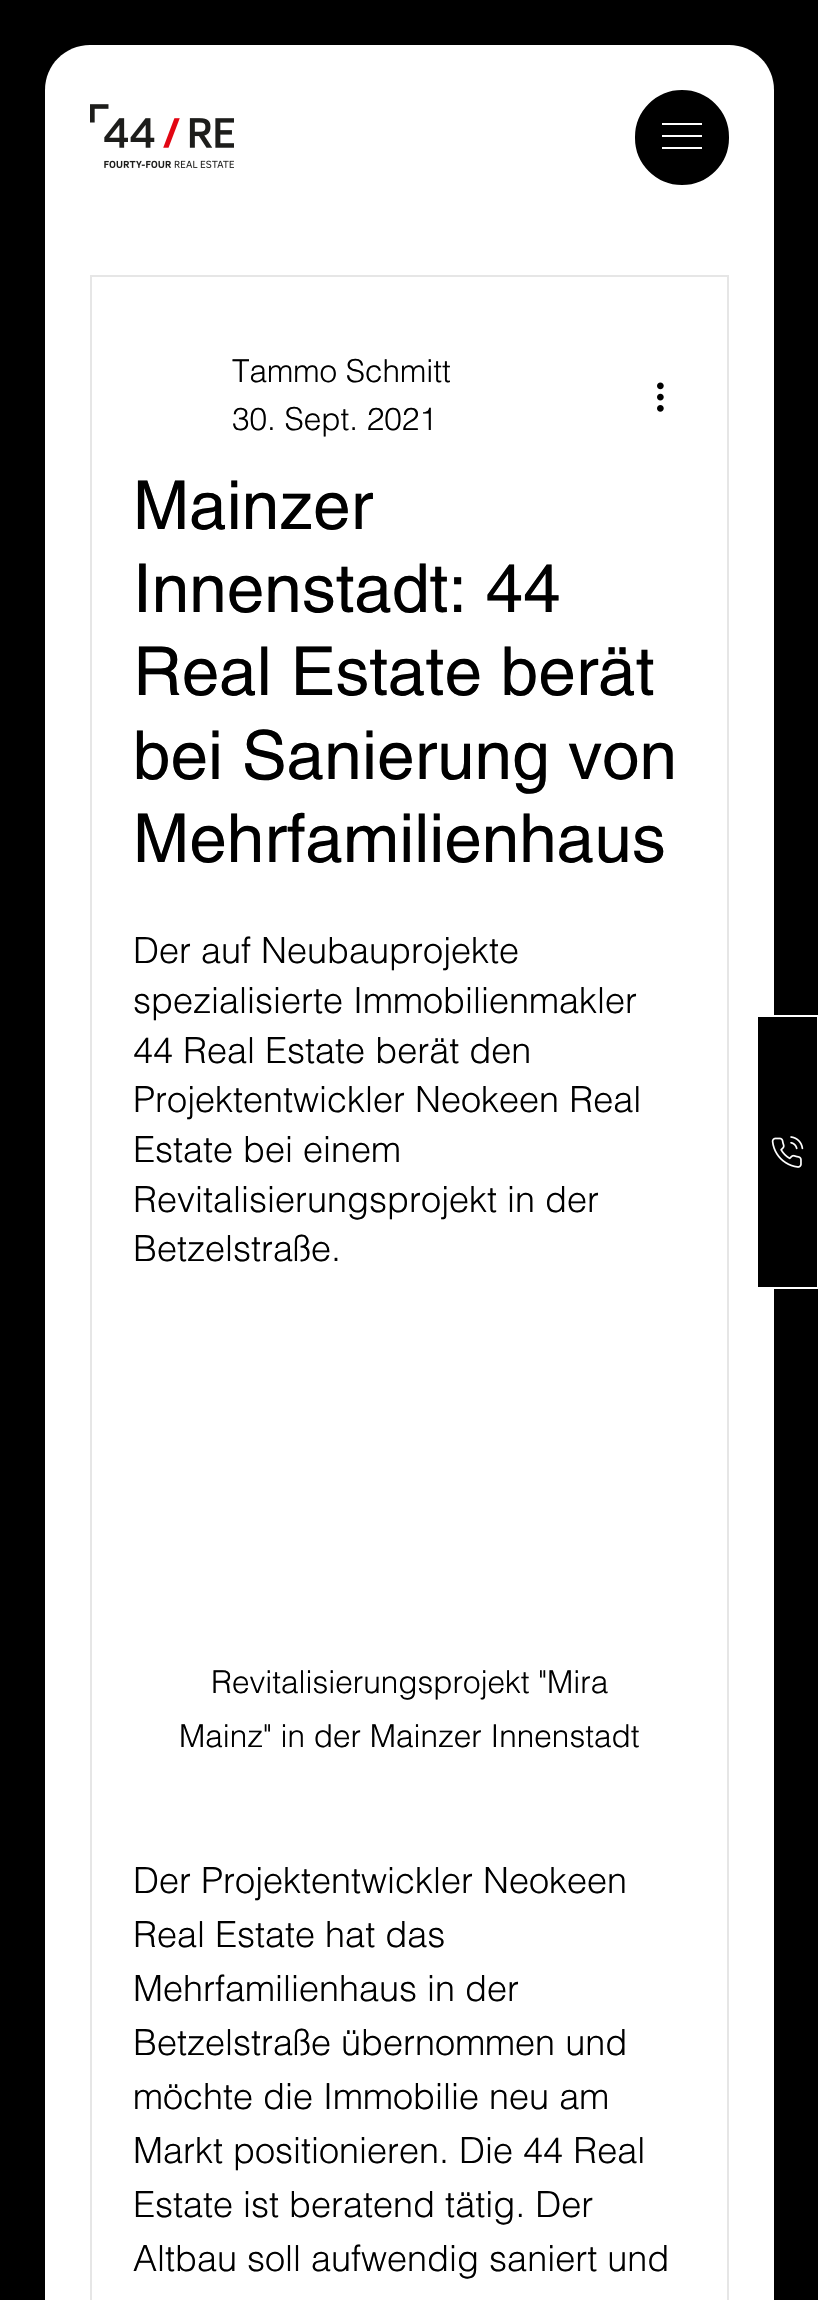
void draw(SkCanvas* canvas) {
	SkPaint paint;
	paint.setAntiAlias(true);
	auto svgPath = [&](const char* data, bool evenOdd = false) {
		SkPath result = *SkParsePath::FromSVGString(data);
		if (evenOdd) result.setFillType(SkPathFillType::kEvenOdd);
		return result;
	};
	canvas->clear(0xff000000);
	paint.setColor(0xffffffff);
	canvas->drawPath(svgPath("M90 45H729C754 45 774 65 774 90V230H45V90C45 65 65 45 90 45Z"), paint);
	canvas->drawImageRect(SkImages::DeferredFromEncodedData(SkData::MakeFromFileName("img1.png")), SkRect::MakeXYWH(90, 104, 144, 64), SkSamplingOptions());
	paint.setColor(0xff000000);
	canvas->drawRoundRect(SkRect::MakeXYWH(636, 91, 92, 93), 46, 46, paint);
	paint.setStroke(true);
	paint.setStrokeWidth(2);
	canvas->drawRoundRect(SkRect::MakeXYWH(636, 91, 92, 93), 46, 46, paint);
	paint.setStroke(false);
	paint.setColor(0xffffffff);
	canvas->drawRect(SkRect::MakeXYWH(662, 123, 40, 2), paint);
	canvas->drawRect(SkRect::MakeXYWH(662, 135, 40, 2), paint);
	canvas->drawRect(SkRect::MakeXYWH(662, 147, 40, 2), paint);
	canvas->drawRect(SkRect::MakeXYWH(45, 230, 729, 2070), paint);
	paint.setStroke(true);
	paint.setColor(0xffe6e6e6);
	canvas->drawRect(SkRect::MakeXYWH(91, 276, 637, 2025), paint);
	SkFont f1(fontMgr->matchFamilyStyle("helvetica", SkFontStyle(300, SkFontStyle::kNormal_Width, SkFontStyle::kUpright_Slant)), 31.5);
	f1.setSubpixel(true);
	paint.setStroke(false);
	paint.setColor(0xff000000);
	canvas->drawString("Tammo Schmitt", 232, 382, f1, paint);
	canvas->drawString("30. Sept. 2021", 232, 430, f1, paint);
	canvas->drawImageRect(SkImages::DeferredFromEncodedData(SkData::MakeFromFileName("img2.png")), SkRect::MakeXYWH(657, 382, 7, 30), SkSamplingOptions());
	SkFont f2(fontMgr->matchFamilyStyle("helvetica", SkFontStyle::Normal()), 67.5);
	f2.setSubpixel(true);
	canvas->drawString("Mainzer", 133, 529, f2, paint);
	canvas->drawString("Innenstadt: 44", 133, 612, f2, paint);
	canvas->drawString("Real Estate berät", 133, 695, f2, paint);
	canvas->drawString("bei Sanierung von", 133, 779, f2, paint);
	canvas->drawString("Mehrfamilienhaus", 133, 862, f2, paint);
	SkFont f3(fontMgr->matchFamilyStyle("helvetica", SkFontStyle(300, SkFontStyle::kNormal_Width, SkFontStyle::kUpright_Slant)), 36);
	f3.setSubpixel(true);
	canvas->drawString("Der auf Neubauprojekte", 133, 963, f3, paint);
	canvas->drawString("spezialisierte Immobilienmakler", 133, 1013, f3, paint);
	canvas->drawString("44 Real Estate berät den", 133, 1063, f3, paint);
	canvas->drawString("Projektentwickler Neokeen Real", 133, 1112, f3, paint);
	canvas->drawString("Estate bei einem", 133, 1162, f3, paint);
	canvas->drawString("Revitalisierungsprojekt in der", 133, 1212, f3, paint);
	canvas->drawString("Betzelstraße.", 133, 1261, f3, paint);
	canvas->drawString("Revitalisierungsprojekt \"Mira", 211, 1693, f1, paint);
	canvas->drawString("Mainz\" in der Mainzer Innenstadt", 179, 1747, f1, paint);
	canvas->drawString("Der Projektentwickler Neokeen", 133, 1893, f3, paint);
	canvas->drawString("Real Estate hat das", 133, 1947, f3, paint);
	canvas->drawString("Mehrfamilienhaus in der", 133, 2001, f3, paint);
	canvas->drawString("Betzelstraße übernommen und", 133, 2055, f3, paint);
	canvas->drawString("möchte die Immobilie neu am", 133, 2109, f3, paint);
	canvas->drawString("Markt positionieren. Die 44 Real", 133, 2163, f3, paint);
	canvas->drawString("Estate ist beratend tätig. Der", 133, 2217, f3, paint);
	canvas->drawString("Altbau soll aufwendig saniert und", 133, 2271, f3, paint);
	canvas->drawRect(SkRect::MakeXYWH(758, 1017, 16, 270), paint);
	paint.setStroke(true);
	paint.setColor(0xffffffff);
	canvas->drawRect(SkRect::MakeXYWH(757, 1016, 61, 272), paint);
	canvas->drawImageRect(SkImages::DeferredFromEncodedData(SkData::MakeFromFileName("img3.png")), SkRect::MakeXYWH(771, 1136, 33, 32), SkSamplingOptions());
}
